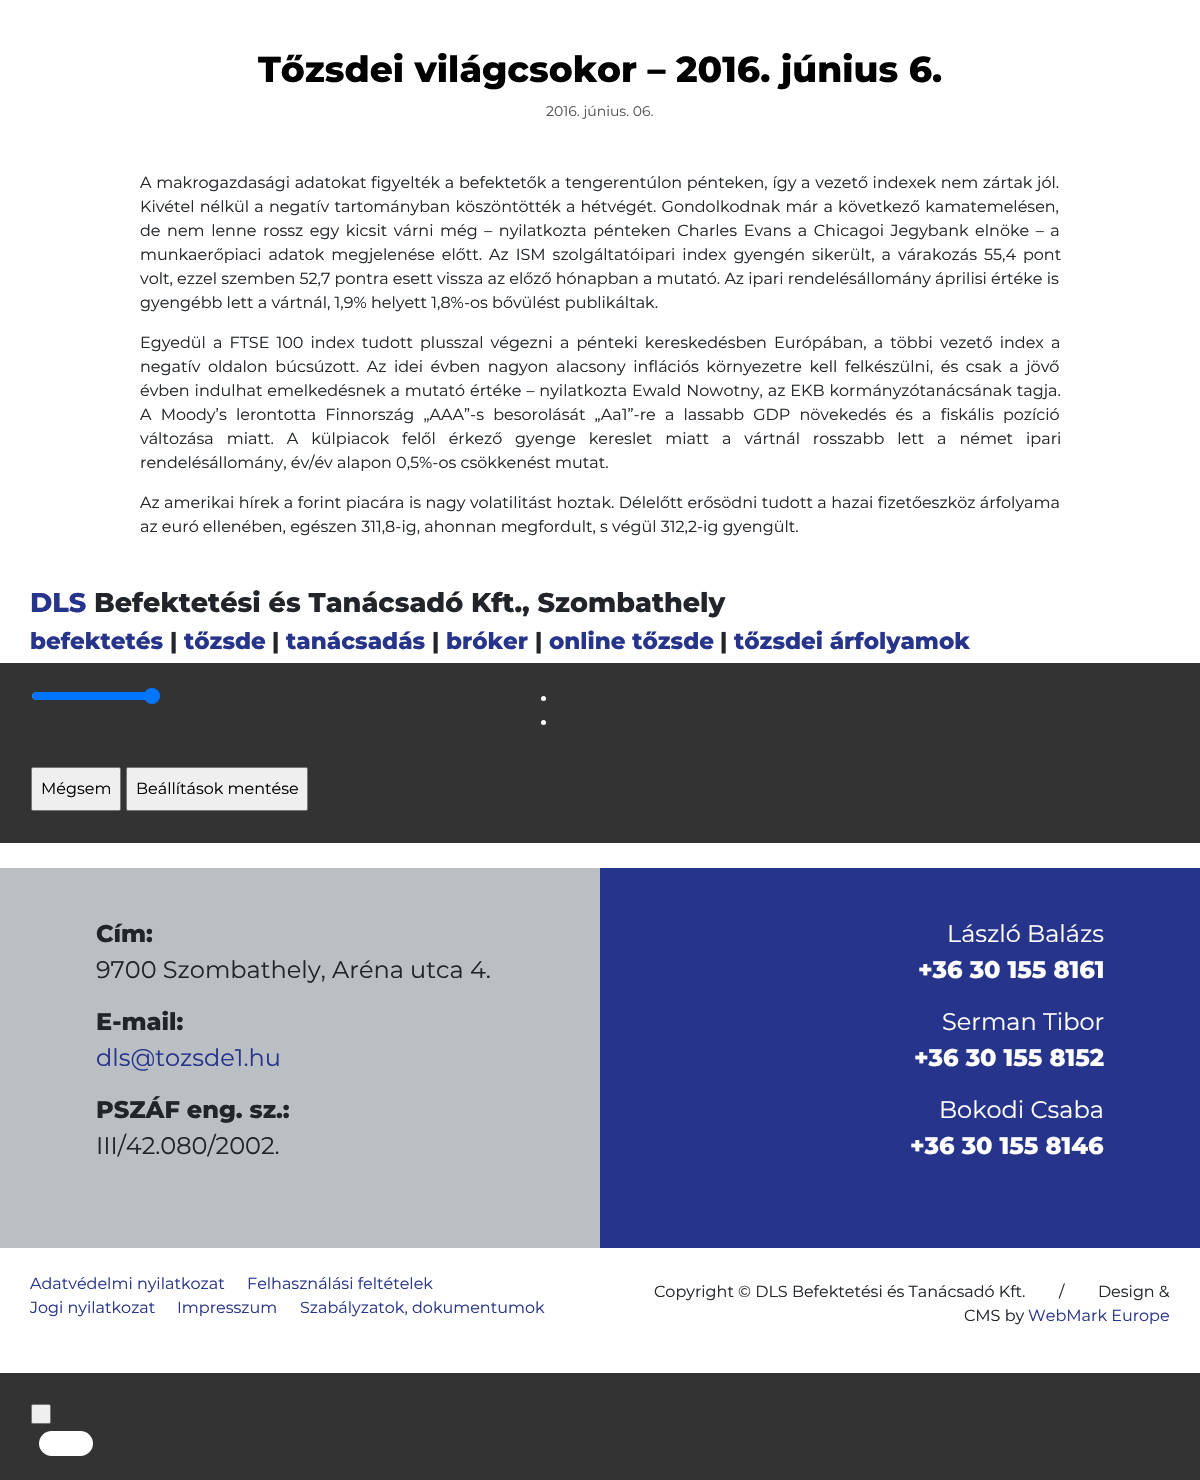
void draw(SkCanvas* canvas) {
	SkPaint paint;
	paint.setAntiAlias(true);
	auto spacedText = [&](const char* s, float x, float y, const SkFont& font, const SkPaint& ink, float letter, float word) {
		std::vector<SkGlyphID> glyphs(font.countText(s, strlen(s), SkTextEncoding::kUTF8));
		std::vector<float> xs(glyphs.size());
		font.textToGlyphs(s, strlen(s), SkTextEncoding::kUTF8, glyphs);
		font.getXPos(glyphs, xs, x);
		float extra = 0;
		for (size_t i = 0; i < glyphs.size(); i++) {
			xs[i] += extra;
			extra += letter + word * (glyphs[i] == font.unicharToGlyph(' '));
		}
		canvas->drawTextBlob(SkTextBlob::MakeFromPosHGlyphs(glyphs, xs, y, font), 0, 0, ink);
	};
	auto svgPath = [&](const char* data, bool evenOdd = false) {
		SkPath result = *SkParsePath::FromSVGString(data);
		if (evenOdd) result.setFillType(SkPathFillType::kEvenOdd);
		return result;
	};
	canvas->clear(0xffffffff);
	SkFont f1(fontMgr->matchFamilyStyle("Montserrat", SkFontStyle(800, SkFontStyle::kNormal_Width, SkFontStyle::kUpright_Slant)), 36);
	f1.setSubpixel(true);
	paint.setColor(0xff000000);
	canvas->drawString("Tőzsdei világcsokor – 2016. június 6.", 258, 82, f1, paint);
	SkFont f2(fontMgr->matchFamilyStyle("Montserrat", SkFontStyle::Normal()), 14);
	f2.setSubpixel(true);
	paint.setColor(0xff555555);
	canvas->drawString("2016. június. 06.", 546, 116, f2, paint);
	SkFont f3(fontMgr->matchFamilyStyle("Montserrat", SkFontStyle::Normal()), 16);
	f3.setSubpixel(true);
	paint.setColor(0xff212529);
	spacedText("A makrogazdasági adatokat figyelték a befektetők a tengerentúlon pénteken, így a vezető indexek nem zártak jól.", 140, 188, f3, paint, 0, 0.5);
	spacedText("Kivétel nélkül a negatív tartományban köszöntötték a hétvégét. Gondolkodnak már a következő kamatemelésen,", 140, 212, f3, paint, 0, 1);
	spacedText("de nem lenne rossz egy kicsit várni még – nyilatkozta pénteken Charles Evans a Chicagoi Jegybank elnöke – a", 140, 236, f3, paint, 0, 2.4);
	spacedText("munkaerőpiaci adatok megjelenése előtt. Az ISM szolgáltatóipari index gyengén sikerült, a várakozás 55,4 pont", 140, 260, f3, paint, 0, 2.75);
	canvas->drawString("volt, ezzel szemben 52,7 pontra esett vissza az előző hónapban a mutató. Az ipari rendelésállomány áprilisi értéke is", 140, 284, f3, paint);
	canvas->drawString("gyengébb lett a vártnál, 1,9% helyett 1,8%-os bővülést publikáltak.", 140, 308, f3, paint);
	spacedText("Egyedül a FTSE 100 index tudott plusszal végezni a pénteki kereskedésben Európában, a többi vezető index a", 140, 348, f3, paint, 0, 2.9);
	spacedText("negatív oldalon búcsúzott. Az idei évben nagyon alacsony inflációs környezetre kell felkészülni, és csak a jövő", 140, 372, f3, paint, 0, 3.4);
	spacedText("évben indulhat emelkedésnek a mutató értéke – nyilatkozta Ewald Nowotny, az EKB kormányzótanácsának tagja.", 140, 396, f3, paint, 0, 0.75);
	spacedText("A Moody’s lerontotta Finnország „AAA”-s besorolását „Aa1”-re a lassabb GDP növekedés és a fiskális pozíció", 140, 420, f3, paint, 0, 5);
	spacedText("változása miatt. A külpiacok felől érkező gyenge kereslet miatt a vártnál rosszabb lett a német ipari", 140, 444, f3, paint, 0, 8.75);
	canvas->drawString("rendelésállomány, év/év alapon 0,5%-os csökkenést mutat.", 140, 468, f3, paint);
	spacedText("Az amerikai hírek a forint piacára is nagy volatilitást hoztak. Délelőtt erősödni tudott a hazai fizetőeszköz árfolyama", 140, 508, f3, paint, 0, 0.25);
	canvas->drawString("az euró ellenében, egészen 311,8-ig, ahonnan megfordult, s végül 312,2-ig gyengült.", 140, 532, f3, paint);
	SkFont f4(fontMgr->matchFamilyStyle("Montserrat", SkFontStyle(800, SkFontStyle::kNormal_Width, SkFontStyle::kUpright_Slant)), 27);
	f4.setSubpixel(true);
	paint.setColor(0xff26348b);
	canvas->drawString("DLS", 30, 612, f4, paint);
	paint.setColor(0xff212529);
	canvas->drawString("Befektetési és Tanácsadó Kft., Szombathely", 94, 612, f4, paint);
	SkFont f5(fontMgr->matchFamilyStyle("Montserrat", SkFontStyle(800, SkFontStyle::kNormal_Width, SkFontStyle::kUpright_Slant)), 23);
	f5.setSubpixel(true);
	paint.setColor(0xff26348b);
	canvas->drawString("befektetés", 30, 649, f5, paint);
	paint.setColor(0xff212529);
	canvas->drawString("|", 170, 649, f5, paint);
	paint.setColor(0xff26348b);
	canvas->drawString("tőzsde", 184, 649, f5, paint);
	paint.setColor(0xff212529);
	canvas->drawString("|", 272, 649, f5, paint);
	paint.setColor(0xff26348b);
	canvas->drawString("tanácsadás", 286, 649, f5, paint);
	paint.setColor(0xff212529);
	canvas->drawString("|", 432, 649, f5, paint);
	paint.setColor(0xff26348b);
	canvas->drawString("bróker", 446, 649, f5, paint);
	paint.setColor(0xff212529);
	canvas->drawString("|", 535, 649, f5, paint);
	paint.setColor(0xff26348b);
	canvas->drawString("online tőzsde", 549, 649, f5, paint);
	paint.setColor(0xff212529);
	canvas->drawString("|", 720, 649, f5, paint);
	paint.setColor(0xff26348b);
	canvas->drawString("tőzsdei árfolyamok", 734, 649, f5, paint);
	paint.setColor(0xff333333);
	canvas->drawRect(SkRect::MakeXYWH(0, 663, 1200, 180), paint);
	paint.setStroke(true);
	paint.setStrokeWidth(1);
	paint.setColor(0xffb2b2b2);
	canvas->drawRoundRect(SkRect::MakeXYWH(32.5, 692.5, 126, 7), 3.5, 3.5, paint);
	paint.setStroke(false);
	paint.setColor(0xff0075ff);
	canvas->drawPath(svgPath("M36 692H152V700H36C34 700 32 698 32 696C32 694 34 692 36 692Z"), paint);
	canvas->drawCircle(152, 696, 8, paint);
	paint.setColor(0xffffffff);
	canvas->drawCircle(543.5, 698.5, 2.5, paint);
	canvas->drawCircle(543.5, 722.5, 2.5, paint);
	paint.setColor(0xffefefef);
	canvas->drawRoundRect(SkRect::MakeXYWH(31.5, 767.5, 89, 43), 1.5, 1.5, paint);
	paint.setStroke(true);
	paint.setColor(0xff767676);
	canvas->drawRoundRect(SkRect::MakeXYWH(31.5, 767.5, 89, 43), 1.5, 1.5, paint);
	paint.setStroke(false);
	paint.setColor(0xff000000);
	canvas->drawString("Mégsem", 41, 794, f3, paint);
	paint.setColor(0xffefefef);
	canvas->drawRoundRect(SkRect::MakeXYWH(126.5, 767.5, 181, 43), 1.5, 1.5, paint);
	paint.setStroke(true);
	paint.setColor(0xff767676);
	canvas->drawRoundRect(SkRect::MakeXYWH(126.5, 767.5, 181, 43), 1.5, 1.5, paint);
	paint.setStroke(false);
	paint.setColor(0xff000000);
	canvas->drawString("Beállítások mentése", 136, 794, f3, paint);
	paint.setColor(0xffbabfc4);
	canvas->drawRect(SkRect::MakeXYWH(0, 868, 600, 380), paint);
	SkFont f6(fontMgr->matchFamilyStyle("Montserrat", SkFontStyle(800, SkFontStyle::kNormal_Width, SkFontStyle::kUpright_Slant)), 24);
	f6.setSubpixel(true);
	paint.setColor(0xff212529);
	canvas->drawString("Cím:", 96, 942, f6, paint);
	SkFont f7(fontMgr->matchFamilyStyle("Montserrat", SkFontStyle::Normal()), 24);
	f7.setSubpixel(true);
	canvas->drawString("9700 Szombathely, Aréna utca 4.", 96, 978, f7, paint);
	canvas->drawString("E-mail:", 96, 1030, f6, paint);
	paint.setColor(0xff26348b);
	canvas->drawString("dls@tozsde1.hu", 96, 1066, f7, paint);
	paint.setColor(0xff212529);
	canvas->drawString("PSZÁF eng. sz.:", 96, 1118, f6, paint);
	canvas->drawString("III/42.080/2002.", 96, 1154, f7, paint);
	paint.setColor(0xff27348b);
	canvas->drawRect(SkRect::MakeXYWH(600, 868, 600, 380), paint);
	paint.setColor(0xffffffff);
	canvas->drawString("László Balázs", 947, 942, f7, paint);
	canvas->drawString("+36 30 155 8161", 918, 978, f6, paint);
	canvas->drawString("Serman Tibor", 942, 1030, f7, paint);
	canvas->drawString("+36 30 155 8152", 914, 1066, f6, paint);
	canvas->drawString("Bokodi Csaba", 939, 1118, f7, paint);
	canvas->drawString("+36 30 155 8146", 910, 1154, f6, paint);
	paint.setColor(0xff26348b);
	canvas->drawString("Adatvédelmi nyilatkozat", 30, 1289, f3, paint);
	canvas->drawString("Felhasználási feltételek", 247, 1289, f3, paint);
	canvas->drawString("Jogi nyilatkozat", 30, 1313, f3, paint);
	canvas->drawString("Impresszum", 177, 1313, f3, paint);
	canvas->drawString("Szabályzatok, dokumentumok", 300, 1313, f3, paint);
	paint.setColor(0xff212529);
	canvas->drawString("Copyright © DLS Befektetési és Tanácsadó Kft.        /        Design &", 654, 1297, f3, paint);
	canvas->drawString("CMS by", 964, 1321, f3, paint);
	paint.setColor(0xff26348b);
	canvas->drawString("WebMark Europe", 1028, 1321, f3, paint);
	paint.setColor(0xff333333);
	canvas->drawRect(SkRect::MakeXYWH(0, 1373, 1200, 107), paint);
	paint.setColor(0xffefefef);
	canvas->drawRoundRect(SkRect::MakeXYWH(31.5, 1404.5, 19, 19), 1.5, 1.5, paint);
	paint.setStroke(true);
	paint.setColor(0xff767676);
	canvas->drawRoundRect(SkRect::MakeXYWH(31.5, 1404.5, 19, 19), 1.5, 1.5, paint);
	paint.setStroke(false);
	paint.setColor(0xffffffff);
	canvas->drawRoundRect(SkRect::MakeXYWH(40.5, 1432.5, 51, 22), 11, 11, paint);
	paint.setStroke(true);
	paint.setStrokeWidth(3);
	canvas->drawRoundRect(SkRect::MakeXYWH(40.5, 1432.5, 51, 22), 11, 11, paint);
}
